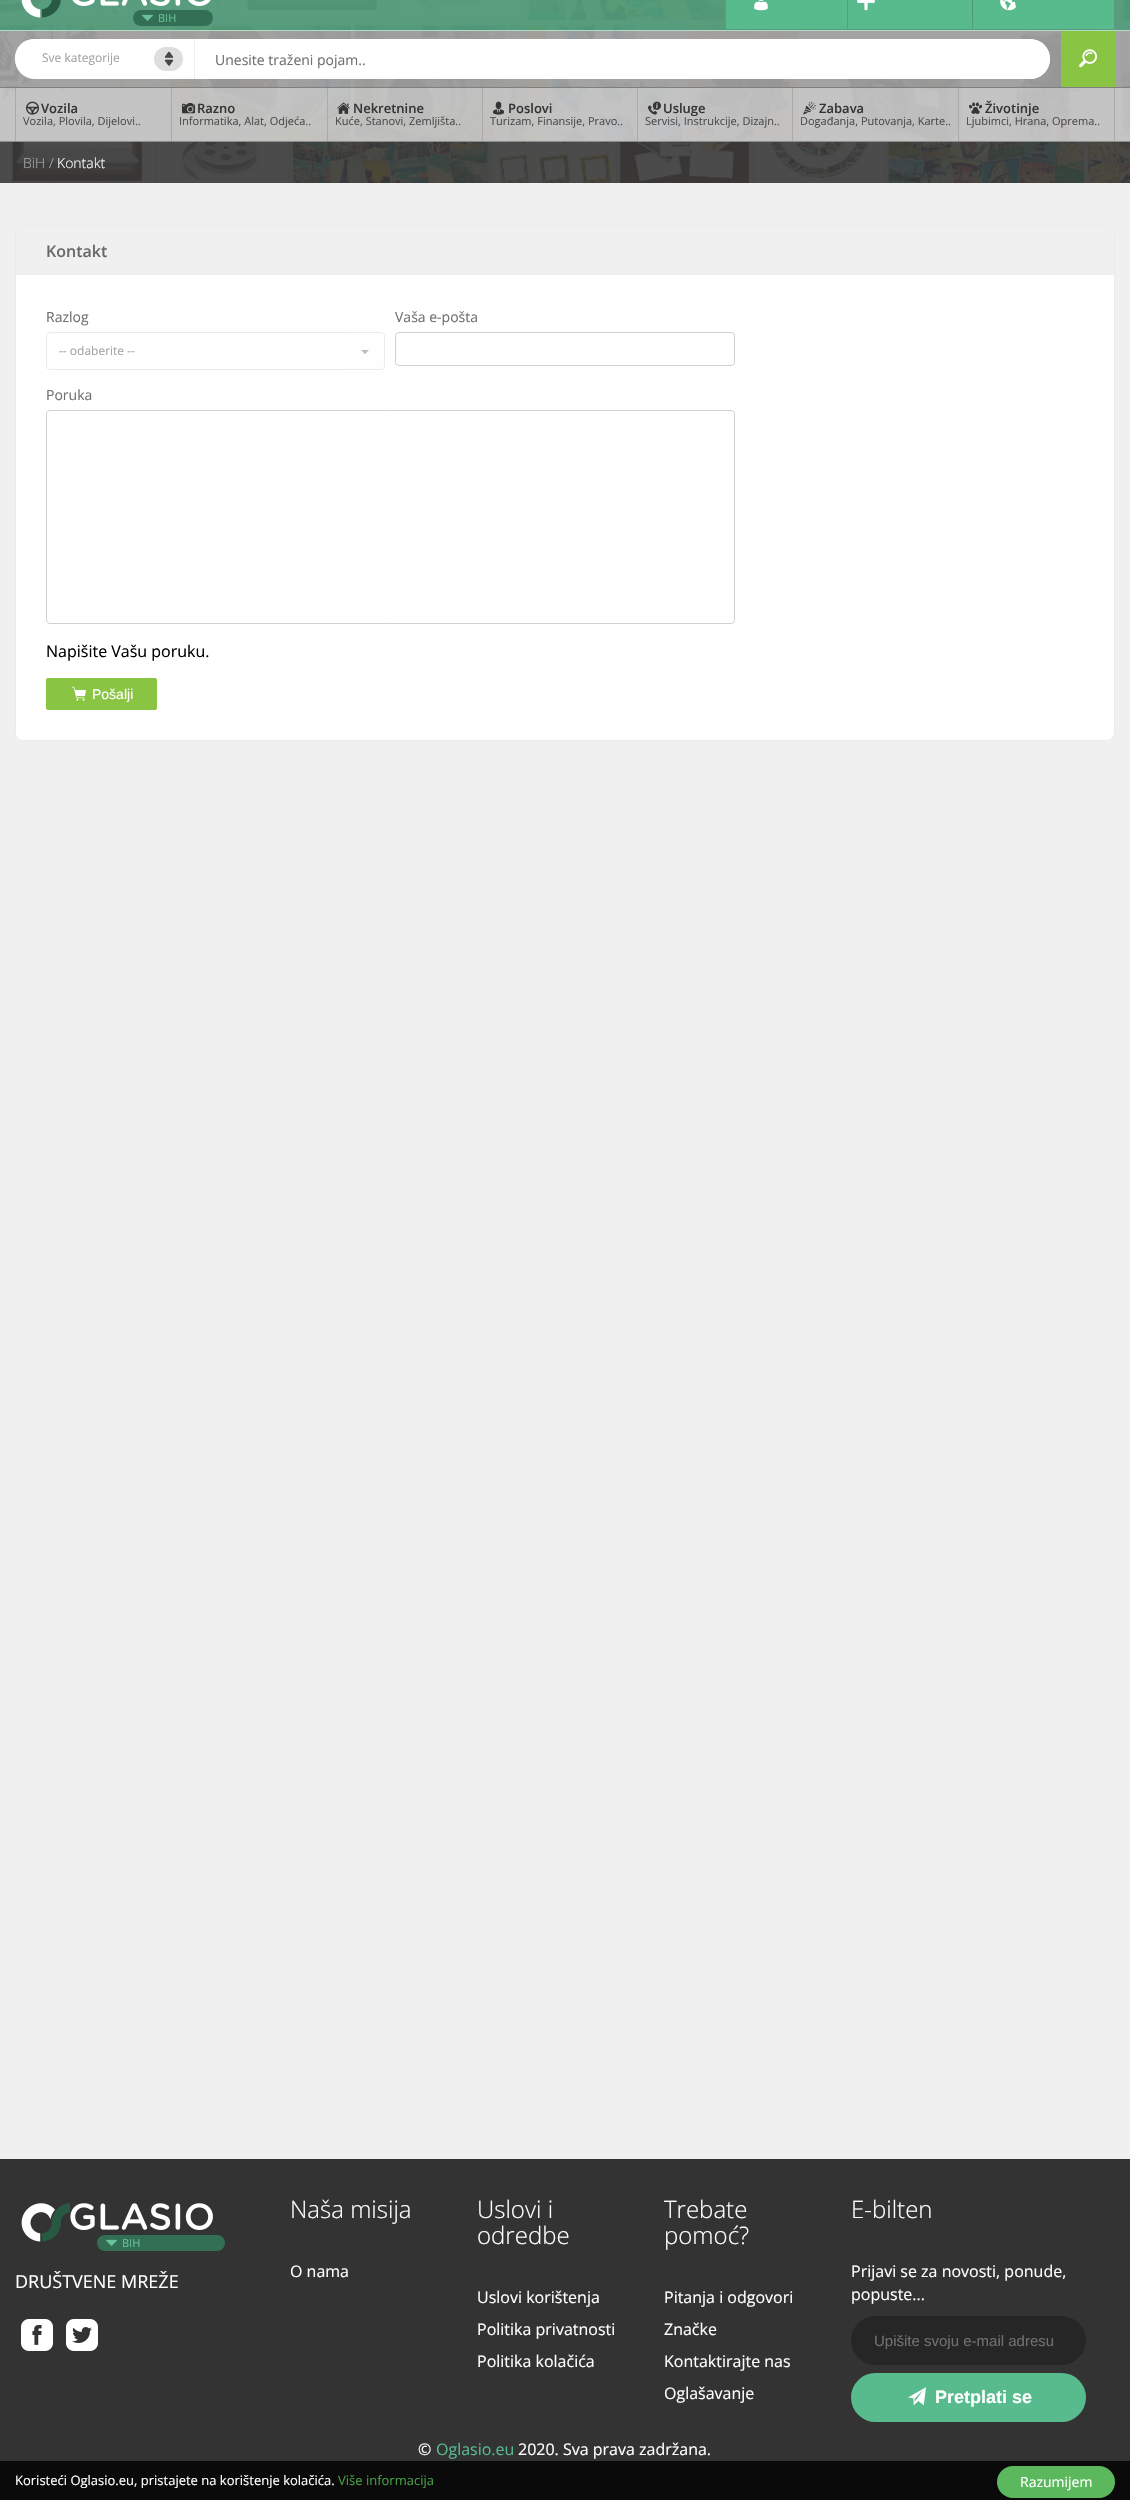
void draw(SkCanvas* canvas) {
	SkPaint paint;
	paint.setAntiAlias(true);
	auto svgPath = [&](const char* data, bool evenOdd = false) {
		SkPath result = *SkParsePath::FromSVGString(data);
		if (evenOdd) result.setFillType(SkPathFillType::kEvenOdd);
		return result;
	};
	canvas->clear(0xfff0f0f0);
	canvas->drawImageRect(SkImages::DeferredFromEncodedData(SkData::MakeFromFileName("img1.png")), SkRect::MakeXYWH(0, 0, 1130, 141), SkSamplingOptions());
	paint.setColor(0xb358bb8d);
	canvas->drawRect(SkRect::MakeXYWH(0, 0, 1130, 30), paint);
	paint.setColor(0xffafdbc7);
	canvas->drawRect(SkRect::MakeXYWH(0, 30, 1130, 1), paint);
	canvas->drawImageRect(SkImages::DeferredFromEncodedData(SkData::MakeFromFileName("img2.png")), SkRect::MakeXYWH(21, 0, 190, 18), SkSamplingOptions());
	paint.setColor(0xff326f54);
	canvas->drawRoundRect(SkRect::MakeXYWH(133, 10, 80, 16), 8, 8, paint);
	canvas->drawImageRect(SkImages::DeferredFromEncodedData(SkData::MakeFromFileName("img3.png")), SkRect::MakeXYWH(142, 14, 11, 7), SkSamplingOptions());
	SkFont f1(fontMgr->matchFamilyStyle("Open Sans", SkFontStyle::Normal()), 11);
	f1.setSubpixel(true);
	paint.setColor(0xff68c198);
	canvas->drawString("BIH", 158, 22, f1, paint);
	paint.setColor(0xff58bb8d);
	canvas->drawRect(SkRect::MakeXYWH(726, 0, 121, 29), paint);
	canvas->drawImageRect(SkImages::DeferredFromEncodedData(SkData::MakeFromFileName("img4.png")), SkRect::MakeXYWH(754, 0, 14, 11), SkSamplingOptions());
	canvas->drawRect(SkRect::MakeXYWH(848, 0, 124, 29), paint);
	canvas->drawImageRect(SkImages::DeferredFromEncodedData(SkData::MakeFromFileName("img5.png")), SkRect::MakeXYWH(857, 0, 18, 11), SkSamplingOptions());
	canvas->drawRect(SkRect::MakeXYWH(973, 0, 141, 29), paint);
	canvas->drawImageRect(SkImages::DeferredFromEncodedData(SkData::MakeFromFileName("img6.png")), SkRect::MakeXYWH(1000, 0, 16, 11), SkSamplingOptions());
	paint.setColor(0x91dedede);
	canvas->drawRect(SkRect::MakeXYWH(0, 31, 1130, 56), paint);
	paint.setColor(0xffffffff);
	canvas->drawRoundRect(SkRect::MakeXYWH(15, 39, 1035, 40), 20, 20, paint);
	paint.setColor(0xffefefef);
	canvas->drawRect(SkRect::MakeXYWH(194, 39, 1, 40), paint);
	paint.setColor(0xffffffff);
	canvas->drawPath(svgPath("M34 39H183V77H34C23.5 77 15 68.5 15 58C15 47.5 23.5 39 34 39Z"), paint);
	SkFont f2(fontMgr->matchFamilyStyle("Open Sans", SkFontStyle::Normal()), 12);
	f2.setSubpixel(true);
	paint.setColor(0xffa3a3a3);
	canvas->drawString("Sve kategorije", 42, 62, f2, paint);
	paint.setColor(0xffdedede);
	canvas->drawRoundRect(SkRect::MakeXYWH(154, 47, 29, 24), 12, 12, paint);
	canvas->drawImageRect(SkImages::DeferredFromEncodedData(SkData::MakeFromFileName("img7.png")), SkRect::MakeXYWH(164, 51, 10, 15), SkSamplingOptions());
	paint.setColor(0xffffffff);
	canvas->drawRoundRect(SkRect::MakeXYWH(195, 39, 855, 40), 20, 20, paint);
	SkFont f3(fontMgr->matchFamilyStyle("Open Sans", SkFontStyle::Normal()), 14);
	f3.setSubpixel(true);
	paint.setColor(0xff717070);
	canvas->drawString("Unesite traženi pojam..", 215, 65, f3, paint);
	paint.setColor(0xff89c443);
	canvas->drawRect(SkRect::MakeXYWH(1061, 31, 54, 56), paint);
	canvas->drawImageRect(SkImages::DeferredFromEncodedData(SkData::MakeFromFileName("img8.png")), SkRect::MakeXYWH(1079, 49, 18, 19), SkSamplingOptions());
	paint.setColor(0xbfe8e8e8);
	canvas->drawRect(SkRect::MakeXYWH(0, 88, 1130, 53), paint);
	paint.setColor(0xff7f7f7e);
	canvas->drawRect(SkRect::MakeXYWH(0, 87, 1130, 1), paint);
	paint.setColor(0xff8c8c8c);
	canvas->drawRect(SkRect::MakeXYWH(0, 141, 1130, 1), paint);
	paint.setColor(0xffaaaaaa);
	canvas->drawRect(SkRect::MakeXYWH(1114, 88, 1, 53), paint);
	canvas->drawRect(SkRect::MakeXYWH(15, 88, 1, 53), paint);
	canvas->drawImageRect(SkImages::DeferredFromEncodedData(SkData::MakeFromFileName("img9.png")), SkRect::MakeXYWH(26, 101, 13, 14), SkSamplingOptions());
	SkFont f4(fontMgr->matchFamilyStyle("Open Sans", SkFontStyle(600, SkFontStyle::kNormal_Width, SkFontStyle::kUpright_Slant)), 13);
	f4.setSubpixel(true);
	paint.setColor(0xff353535);
	canvas->drawString("Vozila", 41, 113, f4, paint);
	paint.setColor(0xff4d4c4c);
	canvas->drawString("Vozila, Plovila, Dijelovi..", 23, 125, f1, paint);
	paint.setColor(0xffaaaaaa);
	canvas->drawRect(SkRect::MakeXYWH(171, 88, 1, 53), paint);
	canvas->drawImageRect(SkImages::DeferredFromEncodedData(SkData::MakeFromFileName("img10.png")), SkRect::MakeXYWH(182, 103, 13, 11), SkSamplingOptions());
	paint.setColor(0xff353535);
	canvas->drawString("Razno", 197, 113, f4, paint);
	paint.setColor(0xff4d4c4c);
	canvas->drawString("Informatika, Alat, Odjeća..", 179, 125, f1, paint);
	paint.setColor(0xffaaaaaa);
	canvas->drawRect(SkRect::MakeXYWH(327, 88, 1, 53), paint);
	canvas->drawImageRect(SkImages::DeferredFromEncodedData(SkData::MakeFromFileName("img11.png")), SkRect::MakeXYWH(337, 102, 13, 12), SkSamplingOptions());
	paint.setColor(0xff353535);
	canvas->drawString("Nekretnine", 353, 113, f4, paint);
	paint.setColor(0xff4d4c4c);
	canvas->drawString("Kuće, Stanovi, Zemljišta..", 335, 125, f1, paint);
	paint.setColor(0xffaaaaaa);
	canvas->drawRect(SkRect::MakeXYWH(482, 88, 1, 53), paint);
	canvas->drawImageRect(SkImages::DeferredFromEncodedData(SkData::MakeFromFileName("img12.png")), SkRect::MakeXYWH(493, 101, 11, 14), SkSamplingOptions());
	paint.setColor(0xff353535);
	canvas->drawString("Poslovi", 508, 113, f4, paint);
	paint.setColor(0xff4d4c4c);
	canvas->drawString("Turizam, Finansije, Pravo..", 490, 125, f1, paint);
	paint.setColor(0xffaaaaaa);
	canvas->drawRect(SkRect::MakeXYWH(637, 88, 1, 53), paint);
	canvas->drawImageRect(SkImages::DeferredFromEncodedData(SkData::MakeFromFileName("img13.png")), SkRect::MakeXYWH(648, 101, 13, 14), SkSamplingOptions());
	paint.setColor(0xff353535);
	canvas->drawString("Usluge", 663, 113, f4, paint);
	paint.setColor(0xff4d4c4c);
	canvas->drawString("Servisi, Instrukcije, Dizajn..", 645, 125, f1, paint);
	paint.setColor(0xffaaaaaa);
	canvas->drawRect(SkRect::MakeXYWH(792, 88, 1, 53), paint);
	canvas->drawImageRect(SkImages::DeferredFromEncodedData(SkData::MakeFromFileName("img14.png")), SkRect::MakeXYWH(803, 101, 13, 14), SkSamplingOptions());
	paint.setColor(0xff353535);
	canvas->drawString("Zabava", 819, 113, f4, paint);
	paint.setColor(0xff4d4c4c);
	canvas->drawString("Događanja, Putovanja, Karte..", 800, 125, f1, paint);
	paint.setColor(0xffaaaaaa);
	canvas->drawRect(SkRect::MakeXYWH(958, 88, 1, 53), paint);
	canvas->drawImageRect(SkImages::DeferredFromEncodedData(SkData::MakeFromFileName("img15.png")), SkRect::MakeXYWH(969, 102, 13, 12), SkSamplingOptions());
	paint.setColor(0xff353535);
	canvas->drawString("Životinje", 985, 113, f4, paint);
	paint.setColor(0xff4d4c4c);
	canvas->drawString("Ljubimci, Hrana, Oprema..", 966, 125, f1, paint);
	canvas->drawImageRect(SkImages::DeferredFromEncodedData(SkData::MakeFromFileName("img16.png")), SkRect::MakeXYWH(0, 142, 1130, 41), SkSamplingOptions());
	SkFont f5(fontMgr->matchFamilyStyle("Open Sans", SkFontStyle(300, SkFontStyle::kNormal_Width, SkFontStyle::kUpright_Slant)), 14);
	f5.setSubpixel(true);
	paint.setColor(0xffacacac);
	canvas->drawString("BiH", 23, 168, f5, paint);
	canvas->drawString("/", 49, 168, f5, paint);
	paint.setColor(0xffffffff);
	canvas->drawString("Kontakt", 57, 168, f5, paint);
	canvas->drawRoundRect(SkRect::MakeXYWH(15.5, 225.5, 1099, 515), 7.5, 7.5, paint);
	paint.setStroke(true);
	paint.setStrokeWidth(1);
	paint.setColor(0xffebebeb);
	canvas->drawRoundRect(SkRect::MakeXYWH(15.5, 225.5, 1099, 515), 7.5, 7.5, paint);
	paint.setStroke(false);
	paint.setColor(0xfff0f0f0);
	canvas->drawPath(svgPath("M24 226H1106C1110.5 226 1114 229.5 1114 234V275H16V234C16 229.5 19.5 226 24 226Z"), paint);
	paint.setColor(0xffebebeb);
	canvas->drawRect(SkRect::MakeXYWH(16, 274, 1098, 1), paint);
	SkFont f6(fontMgr->matchFamilyStyle("Open Sans", SkFontStyle(600, SkFontStyle::kNormal_Width, SkFontStyle::kUpright_Slant)), 16);
	f6.setSubpixel(true);
	paint.setColor(0xff696969);
	canvas->drawString("Kontakt", 46, 257, f6, paint);
	paint.setColor(0xff717070);
	canvas->drawString("Razlog", 46, 322, f3, paint);
	paint.setStroke(true);
	paint.setColor(0xffebebeb);
	canvas->drawRoundRect(SkRect::MakeXYWH(46.5, 332.5, 338, 37), 3.5, 3.5, paint);
	paint.setStroke(false);
	paint.setColor(0xffa3a3a3);
	canvas->drawString("-- odaberite --", 59, 355, f2, paint);
	paint.setColor(0xfffefefe);
	canvas->drawPath(svgPath("M346 333H381C382.5 333 384 334.5 384 336V366C384 367.5 382.5 369 381 369H346Z"), paint);
	paint.setColor(0xffbbbbbb);
	canvas->drawPath(svgPath("M361 350H369L365 354Z"), paint);
	paint.setColor(0xff717070);
	canvas->drawString("Vaša e-pošta", 395, 322, f3, paint);
	paint.setStroke(true);
	paint.setColor(0xffd1d1d1);
	canvas->drawRoundRect(SkRect::MakeXYWH(395.5, 332.5, 339, 33), 3.5, 3.5, paint);
	paint.setStroke(false);
	paint.setColor(0xff717070);
	canvas->drawString("Poruka", 46, 400, f3, paint);
	paint.setStroke(true);
	paint.setColor(0xffd1d1d1);
	canvas->drawRoundRect(SkRect::MakeXYWH(46.5, 410.5, 688, 213), 3.5, 3.5, paint);
	SkFont f7(fontMgr->matchFamilyStyle("Open Sans", SkFontStyle::Normal()), 16);
	f7.setSubpixel(true);
	paint.setStroke(false);
	paint.setColor(0xff000000);
	canvas->drawString("Napišite Vašu poruku.", 46, 657, f7, paint);
	paint.setColor(0xff89c443);
	canvas->drawRoundRect(SkRect::MakeXYWH(46, 678, 111, 32), 2, 2, paint);
	canvas->drawImageRect(SkImages::DeferredFromEncodedData(SkData::MakeFromFileName("img17.png")), SkRect::MakeXYWH(72, 686, 14, 15), SkSamplingOptions());
	SkFont f8(fontMgr->matchFamilyStyle("Liberation Sans", SkFontStyle::Normal()), 14);
	f8.setSubpixel(true);
	paint.setColor(0xffffffff);
	canvas->drawString("Pošalji", 92, 699, f8, paint);
	paint.setColor(0xff333333);
	canvas->drawRect(SkRect::MakeXYWH(0, 2159, 1130, 302), paint);
	canvas->drawImageRect(SkImages::DeferredFromEncodedData(SkData::MakeFromFileName("img18.png")), SkRect::MakeXYWH(21, 2203, 192, 39), SkSamplingOptions());
	paint.setColor(0xff326f54);
	canvas->drawRoundRect(SkRect::MakeXYWH(97, 2235, 128, 16), 8, 8, paint);
	canvas->drawImageRect(SkImages::DeferredFromEncodedData(SkData::MakeFromFileName("img3.png")), SkRect::MakeXYWH(106, 2239, 11, 7), SkSamplingOptions());
	paint.setColor(0xff68c198);
	canvas->drawString("BIH", 122, 2247, f1, paint);
	SkFont f9(fontMgr->matchFamilyStyle("Open Sans", SkFontStyle::Normal()), 18);
	f9.setSubpixel(true);
	paint.setColor(0xffffffff);
	canvas->drawString("DRUŠTVENE MREŽE", 15, 2288, f9, paint);
	canvas->drawImageRect(SkImages::DeferredFromEncodedData(SkData::MakeFromFileName("img19.png")), SkRect::MakeXYWH(21, 2319, 32, 32), SkSamplingOptions());
	canvas->drawImageRect(SkImages::DeferredFromEncodedData(SkData::MakeFromFileName("img20.png")), SkRect::MakeXYWH(66, 2319, 32, 32), SkSamplingOptions());
	SkFont f10(fontMgr->matchFamilyStyle("Open Sans", SkFontStyle(300, SkFontStyle::kNormal_Width, SkFontStyle::kUpright_Slant)), 24);
	f10.setSubpixel(true);
	canvas->drawString("Naša misija", 290, 2218, f10, paint);
	canvas->drawString("O nama", 290, 2277, f7, paint);
	canvas->drawString("Uslovi i", 477, 2218, f10, paint);
	canvas->drawString("odredbe", 477, 2244, f10, paint);
	canvas->drawString("Uslovi korištenja", 477, 2303, f7, paint);
	canvas->drawString("Politika privatnosti", 477, 2335, f7, paint);
	canvas->drawString("Politika kolačića", 477, 2367, f7, paint);
	canvas->drawString("Trebate", 664, 2218, f10, paint);
	canvas->drawString("pomoć?", 664, 2244, f10, paint);
	canvas->drawString("Pitanja i odgovori", 664, 2303, f7, paint);
	canvas->drawString("Značke", 664, 2335, f7, paint);
	canvas->drawString("Kontaktirajte nas", 664, 2367, f7, paint);
	canvas->drawString("Oglašavanje", 664, 2399, f7, paint);
	canvas->drawString("E-bilten", 851, 2218, f10, paint);
	canvas->drawString("Prijavi se za novosti, ponude,", 851, 2277, f7, paint);
	canvas->drawString("popuste...", 851, 2300, f7, paint);
	paint.setColor(0xff262626);
	canvas->drawRoundRect(SkRect::MakeXYWH(851, 2316, 235, 49), 24.5, 24.5, paint);
	SkFont f11(fontMgr->matchFamilyStyle("Liberation Sans", SkFontStyle::Normal()), 15);
	f11.setSubpixel(true);
	paint.setColor(0xff717070);
	canvas->drawString("Upišite svoju e-mail adresu", 874, 2346, f11, paint);
	paint.setColor(0xff58bb8d);
	canvas->drawRoundRect(SkRect::MakeXYWH(851, 2373, 235, 49), 24.5, 24.5, paint);
	canvas->drawImageRect(SkImages::DeferredFromEncodedData(SkData::MakeFromFileName("img21.png")), SkRect::MakeXYWH(908, 2387, 18, 19), SkSamplingOptions());
	SkFont f12(fontMgr->matchFamilyStyle("Liberation Sans", SkFontStyle::Bold()), 18);
	f12.setSubpixel(true);
	paint.setColor(0xffffffff);
	canvas->drawString("Pretplati se", 935, 2403, f12, paint);
	canvas->drawString("©", 418, 2455, f7, paint);
	paint.setColor(0xff58bb8d);
	canvas->drawString("Oglasio.eu", 436, 2455, f7, paint);
	paint.setColor(0xffffffff);
	canvas->drawString("2020. Sva prava zadržana.", 518, 2455, f7, paint);
	paint.setColor(0xff0a0a0a);
	canvas->drawRect(SkRect::MakeXYWH(0, 2461, 1130, 39), paint);
	SkFont f13(fontMgr->matchFamilyStyle("Open Sans", SkFontStyle::Normal()), 13);
	f13.setSubpixel(true);
	paint.setColor(0xffffffff);
	canvas->drawString("Koristeći Oglasio.eu, pristajete na korištenje kolačića.", 15, 2485, f13, paint);
	paint.setColor(0xff449d44);
	canvas->drawString("Više informacija", 338, 2485, f13, paint);
	paint.setColor(0xff5cb85c);
	canvas->drawRoundRect(SkRect::MakeXYWH(997, 2466, 118, 32), 16, 16, paint);
	paint.setColor(0xffffffff);
	canvas->drawString("Razumijem", 1020, 2487, f3, paint);
}
